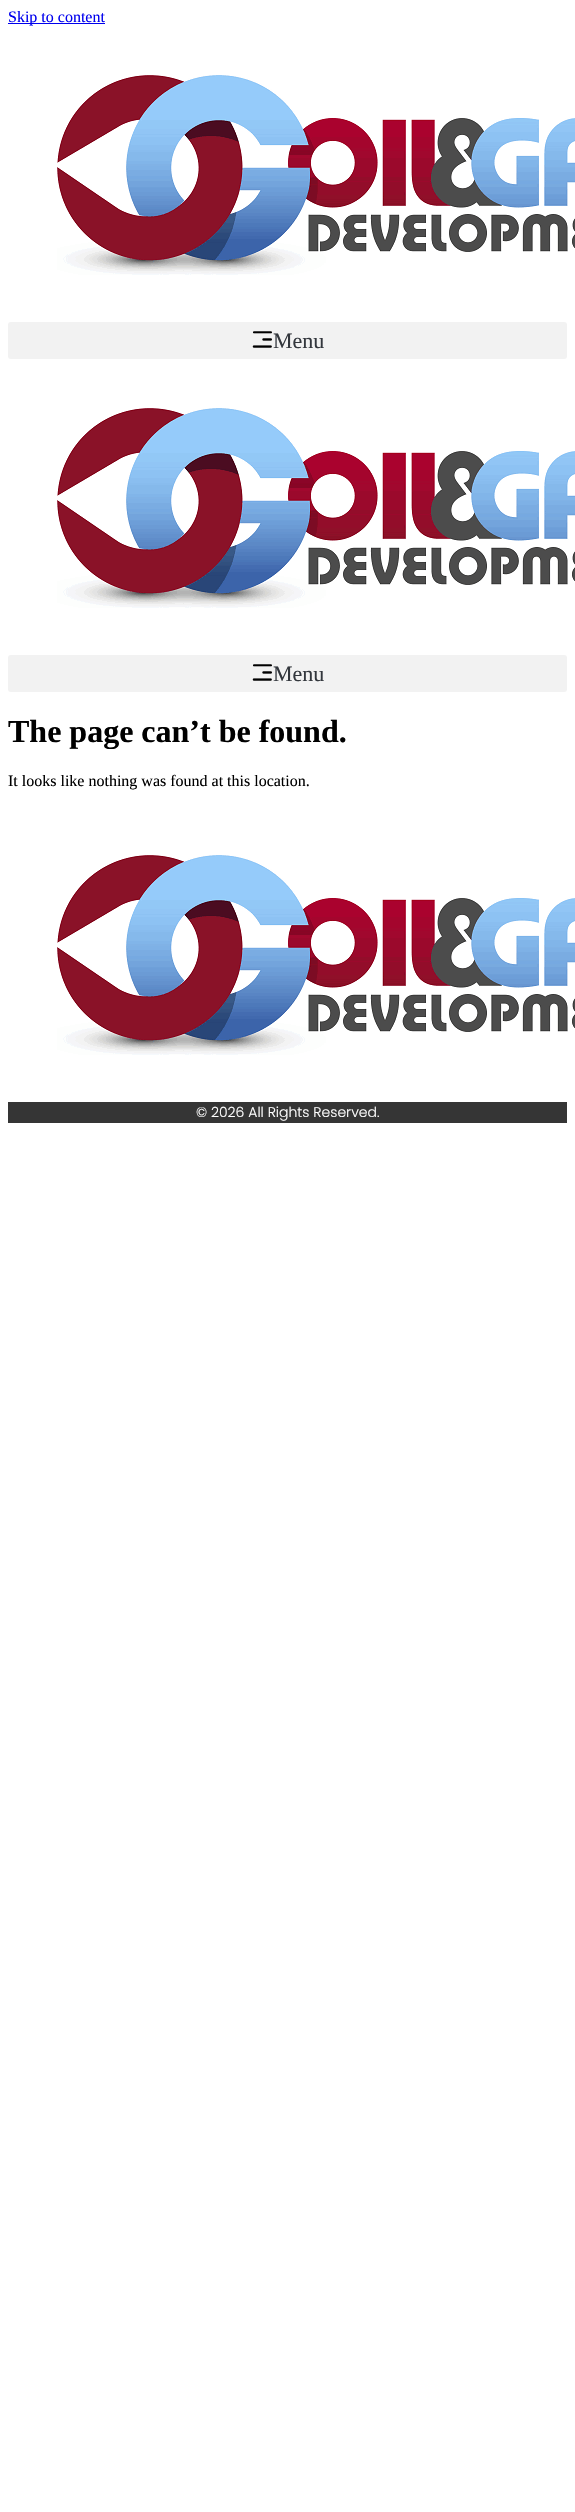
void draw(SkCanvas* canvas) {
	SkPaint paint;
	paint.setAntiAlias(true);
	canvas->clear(0xffffffff);
	paint.setColor(0xff0000ee);
	canvas->drawRect(SkRect::MakeXYWH(8, 23, 97, 1), paint);
	SkFont f1(fontMgr->matchFamilyStyle("Liberation Serif", SkFontStyle::Normal()), 16);
	f1.setSubpixel(true);
	canvas->drawString("Skip to content", 8, 22, f1, paint);
	canvas->drawImageRect(SkImages::DeferredFromEncodedData(SkData::MakeFromFileName("img1.png")), SkRect::MakeXYWH(57, 75, 518, 200), SkSamplingOptions());
	paint.setColor(0xfff2f2f2);
	canvas->drawRoundRect(SkRect::MakeXYWH(8, 322, 559, 37), 3, 3, paint);
	canvas->drawImageRect(SkImages::DeferredFromEncodedData(SkData::MakeFromFileName("img2.png")), SkRect::MakeXYWH(252, 331, 20, 17), SkSamplingOptions());
	SkFont f2(fontMgr->matchFamilyStyle("Liberation Serif", SkFontStyle::Normal()), 22);
	f2.setSubpixel(true);
	paint.setColor(0xff33373d);
	canvas->drawString("Menu", 273, 348, f2, paint);
	canvas->drawImageRect(SkImages::DeferredFromEncodedData(SkData::MakeFromFileName("img1.png")), SkRect::MakeXYWH(57, 408, 518, 200), SkSamplingOptions());
	paint.setColor(0xfff2f2f2);
	canvas->drawRoundRect(SkRect::MakeXYWH(8, 655, 559, 37), 3, 3, paint);
	canvas->drawImageRect(SkImages::DeferredFromEncodedData(SkData::MakeFromFileName("img2.png")), SkRect::MakeXYWH(252, 664, 20, 17), SkSamplingOptions());
	paint.setColor(0xff33373d);
	canvas->drawString("Menu", 273, 681, f2, paint);
	SkFont f3(fontMgr->matchFamilyStyle("Liberation Serif", SkFontStyle::Bold()), 32);
	f3.setSubpixel(true);
	paint.setColor(0xff000000);
	canvas->drawString("The page can’t be found.", 8, 742, f3, paint);
	canvas->drawString("It looks like nothing was found at this location.", 8, 786, f1, paint);
	canvas->drawImageRect(SkImages::DeferredFromEncodedData(SkData::MakeFromFileName("img1.png")), SkRect::MakeXYWH(57, 855, 518, 200), SkSamplingOptions());
	paint.setColor(0xff353535);
	canvas->drawRect(SkRect::MakeXYWH(8, 1102, 559, 21), paint);
	SkFont f4(fontMgr->matchFamilyStyle("Poppins", SkFontStyle(300, SkFontStyle::kNormal_Width, SkFontStyle::kUpright_Slant)), 14);
	f4.setSubpixel(true);
	paint.setColor(0xffffffff);
	canvas->drawString("© 2026 All Rights Reserved.", 196, 1117, f4, paint);
}
